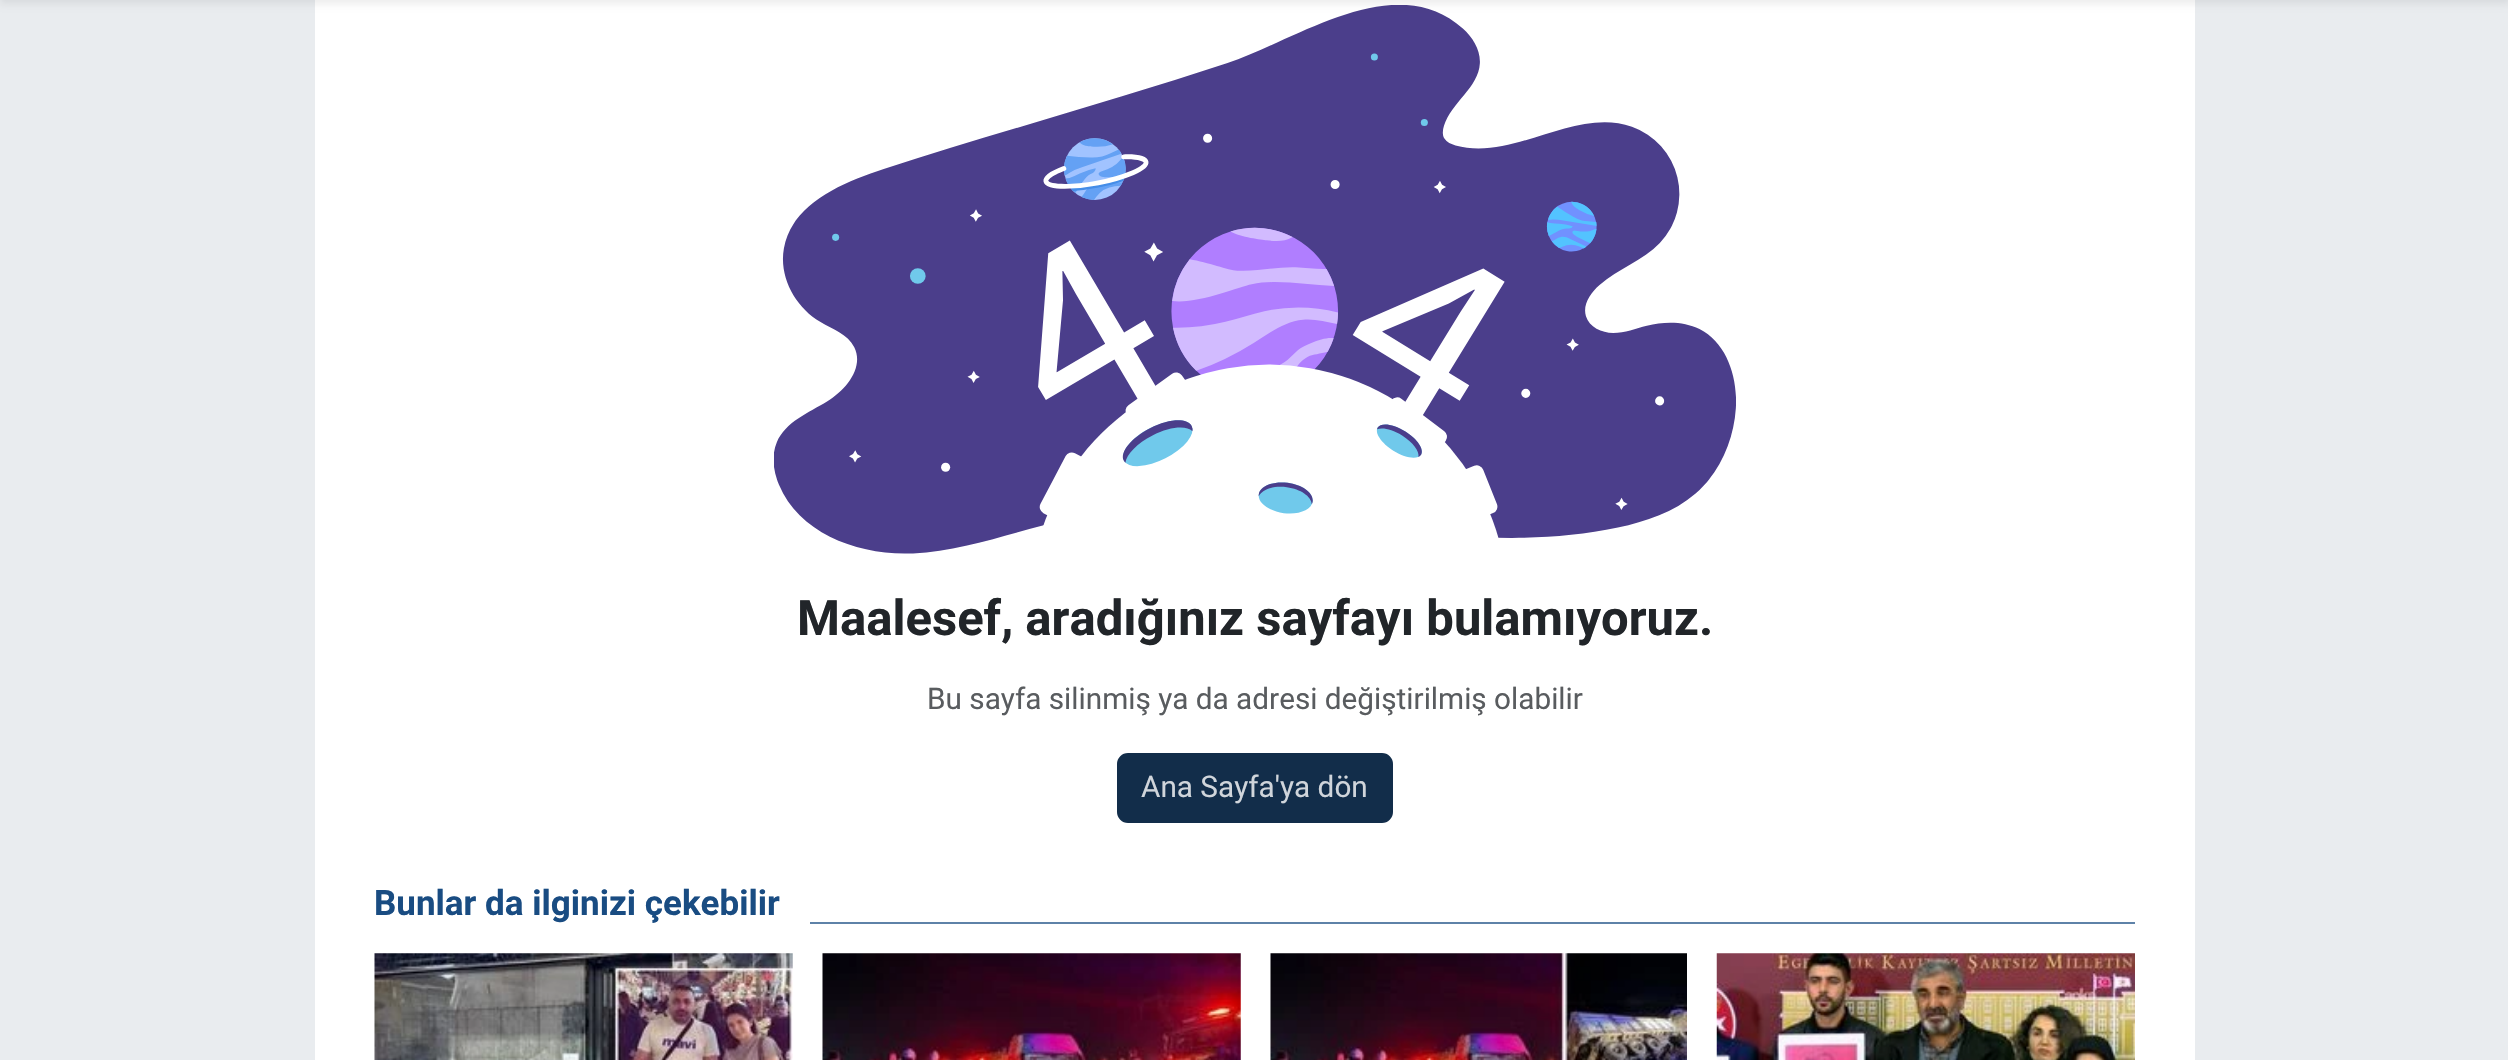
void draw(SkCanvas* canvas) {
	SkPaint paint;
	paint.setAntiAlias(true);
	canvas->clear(0xffe9ecef);
	paint.setColor(0xffffffff);
	canvas->drawRect(SkRect::MakeXYWH(315, 0, 1880, 1060), paint);
	canvas->drawImageRect(SkImages::DeferredFromEncodedData(SkData::MakeFromFileName("img1.png")), SkRect::MakeXYWH(774, 5, 962, 549), SkSamplingOptions());
	paint.setColor(0x12000000);
	paint.setMaskFilter(SkMaskFilter::MakeBlur(kNormal_SkBlurStyle, 3.5));
	canvas->drawRect(SkRect::MakeXYWH(0, -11, 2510, 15), paint);
	paint.setMaskFilter(nullptr);
	SkFont f1(fontMgr->matchFamilyStyle("Roboto", SkFontStyle::Bold()), 49);
	f1.setSubpixel(true);
	paint.setColor(0xff212529);
	canvas->drawString("Maalesef, aradığınız sayfayı bulamıyoruz.", 797, 635, f1, paint);
	SkFont f2(fontMgr->matchFamilyStyle("Roboto", SkFontStyle::Normal()), 29.75);
	f2.setSubpixel(true);
	paint.setColor(0xff595c5f);
	canvas->drawString("Bu sayfa silinmiş ya da adresi değiştirilmiş olabilir", 927, 709, f2, paint);
	paint.setColor(0xff122d4a);
	canvas->drawRoundRect(SkRect::MakeXYWH(1118, 754, 274, 68), 10, 10, paint);
	paint.setStroke(true);
	paint.setStrokeWidth(2);
	canvas->drawRoundRect(SkRect::MakeXYWH(1118, 754, 274, 68), 10, 10, paint);
	paint.setStroke(false);
	paint.setColor(0xffd0d5db);
	canvas->drawString("Ana Sayfa'ya dön", 1141, 797, f2, paint);
	SkFont f3(fontMgr->matchFamilyStyle("Roboto", SkFontStyle::Bold()), 35);
	f3.setSubpixel(true);
	paint.setColor(0xff194c82);
	canvas->drawString("Bunlar da ilginizi çekebilir", 374, 915, f3, paint);
	paint.setColor(0xff5e82a8);
	canvas->drawRect(SkRect::MakeXYWH(810, 922, 1325, 2), paint);
	canvas->drawImageRect(SkImages::DeferredFromEncodedData(SkData::MakeFromFileName("img2.png")), SkRect::MakeXYWH(374, 953, 419, 107), SkSamplingOptions());
	canvas->drawImageRect(SkImages::DeferredFromEncodedData(SkData::MakeFromFileName("img3.png")), SkRect::MakeXYWH(822, 953, 419, 107), SkSamplingOptions());
	canvas->drawImageRect(SkImages::DeferredFromEncodedData(SkData::MakeFromFileName("img4.png")), SkRect::MakeXYWH(1270, 953, 417, 107), SkSamplingOptions());
	canvas->drawImageRect(SkImages::DeferredFromEncodedData(SkData::MakeFromFileName("img5.png")), SkRect::MakeXYWH(1716, 953, 419, 107), SkSamplingOptions());
}
